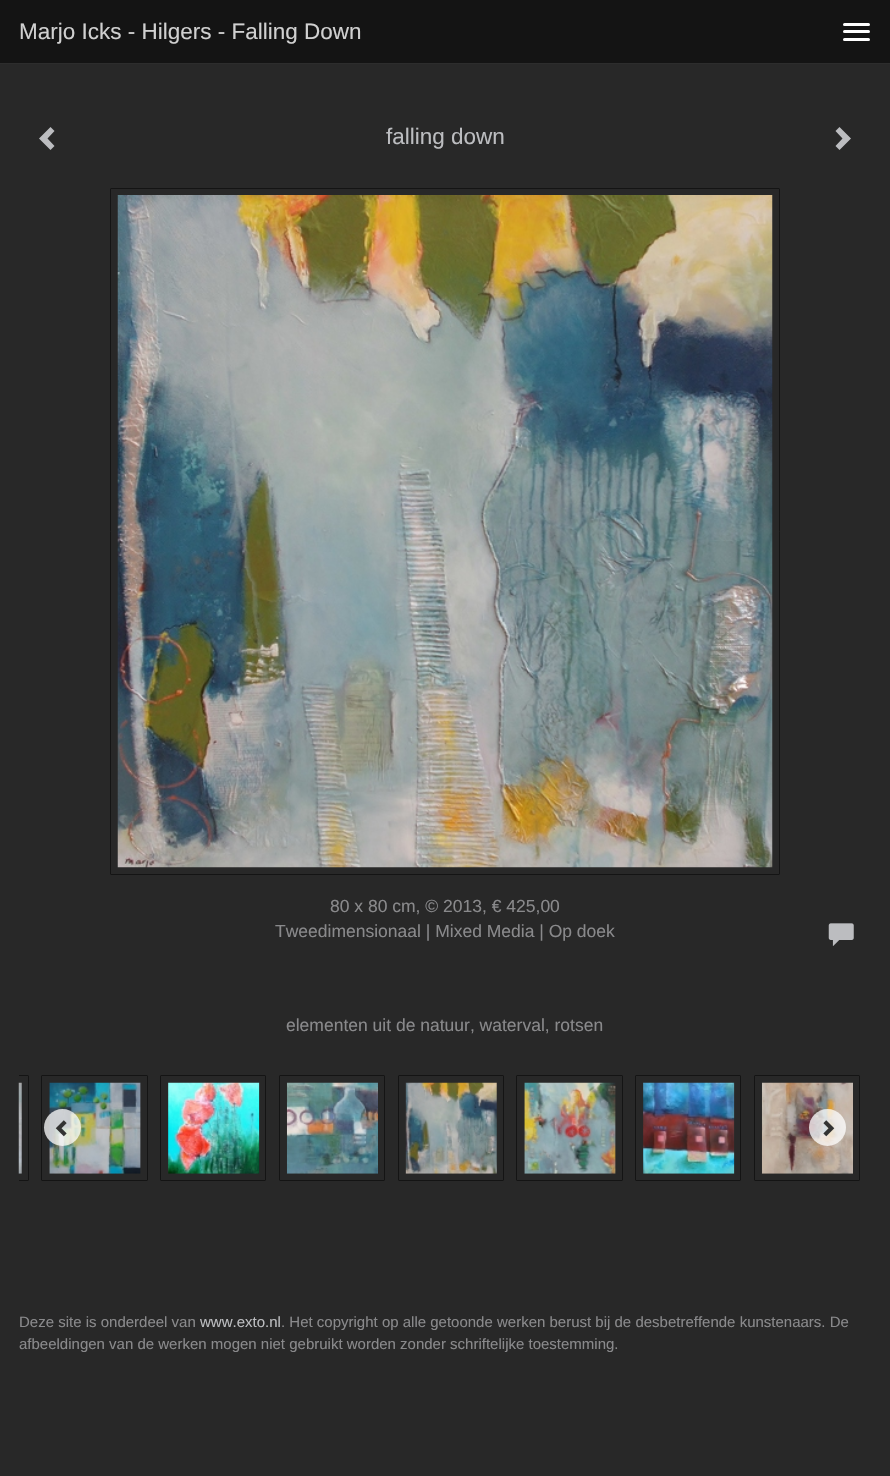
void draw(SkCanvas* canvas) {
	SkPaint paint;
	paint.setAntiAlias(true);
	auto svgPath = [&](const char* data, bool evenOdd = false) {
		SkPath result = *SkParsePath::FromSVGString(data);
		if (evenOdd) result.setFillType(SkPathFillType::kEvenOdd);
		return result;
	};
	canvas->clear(0xff282828);
	paint.setColor(0xff141414);
	canvas->drawRect(SkRect::MakeXYWH(0, 0, 890, 63), paint);
	paint.setColor(0xff2d2d2d);
	canvas->drawRect(SkRect::MakeXYWH(0, 63, 890, 1), paint);
	SkFont f1(fontMgr->matchFamilyStyle("Liberation Sans", SkFontStyle::Normal()), 22.5);
	f1.setSubpixel(true);
	paint.setColor(0xffd0d0d0);
	canvas->drawString("Marjo Icks - Hilgers - Falling Down", 19, 39, f1, paint);
	paint.setColor(0xffffffff);
	canvas->drawRoundRect(SkRect::MakeXYWH(843, 23, 27, 3), 1.5, 1.5, paint);
	canvas->drawRoundRect(SkRect::MakeXYWH(843, 30, 27, 3), 1.5, 1.5, paint);
	canvas->drawRoundRect(SkRect::MakeXYWH(843, 38, 27, 3), 1.5, 1.5, paint);
	paint.setColor(0xffbcbdc0);
	canvas->drawPath(svgPath("M54.5 131L47.5 138.5L54.5 146L50.5 150L39 138.5L50.5 127Z"), paint);
	canvas->drawString("falling down", 386, 144, f1, paint);
	canvas->drawPath(svgPath("M851 138.5L839.5 150L835.5 146L842.5 138.5L835.5 131L839.5 127Z"), paint);
	paint.setStroke(true);
	paint.setStrokeWidth(1);
	paint.setColor(0xff141414);
	canvas->drawRoundRect(SkRect::MakeXYWH(110.5, 188.5, 669, 686), 0.5, 0.5, paint);
	canvas->drawImageRect(SkImages::DeferredFromEncodedData(SkData::MakeFromFileName("img1.png")), SkRect::MakeXYWH(117, 195, 656, 673), SkSamplingOptions());
	SkFont f2(fontMgr->matchFamilyStyle("Liberation Sans", SkFontStyle::Normal()), 17.5);
	f2.setSubpixel(true);
	paint.setStroke(false);
	paint.setColor(0xff89898b);
	canvas->drawString("80 x 80 cm, © 2013, € 425,00", 330, 912, f2, paint);
	canvas->drawString("Tweedimensionaal | Mixed Media | Op doek", 275, 937, f2, paint);
	canvas->drawImageRect(SkImages::DeferredFromEncodedData(SkData::MakeFromFileName("img2.png")), SkRect::MakeXYWH(828, 923, 26, 23), SkSamplingOptions());
	canvas->drawString("elementen uit de natuur, waterval, rotsen", 286, 1031, f2, paint);
	canvas->save();
	canvas->clipRect(SkRect::MakeXYWH(19, 1069, 852, 119));
	paint.setStroke(true);
	paint.setColor(0xff141414);
	canvas->drawRoundRect(SkRect::MakeXYWH(-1.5, 1075.5, 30, 105), 0.5, 0.5, paint);
	canvas->restore();
	canvas->drawImageRect(SkImages::DeferredFromEncodedData(SkData::MakeFromFileName("img3.png")), SkRect::MakeXYWH(18, 1082, 4, 92), SkSamplingOptions());
	canvas->drawRoundRect(SkRect::MakeXYWH(41.5, 1075.5, 106, 105), 0.5, 0.5, paint);
	canvas->drawImageRect(SkImages::DeferredFromEncodedData(SkData::MakeFromFileName("img4.png")), SkRect::MakeXYWH(49, 1082, 92, 92), SkSamplingOptions());
	canvas->drawRoundRect(SkRect::MakeXYWH(160.5, 1075.5, 105, 105), 0.5, 0.5, paint);
	canvas->drawImageRect(SkImages::DeferredFromEncodedData(SkData::MakeFromFileName("img5.png")), SkRect::MakeXYWH(168, 1082, 92, 92), SkSamplingOptions());
	canvas->drawRoundRect(SkRect::MakeXYWH(279.5, 1075.5, 105, 105), 0.5, 0.5, paint);
	canvas->drawImageRect(SkImages::DeferredFromEncodedData(SkData::MakeFromFileName("img6.png")), SkRect::MakeXYWH(286, 1082, 92, 92), SkSamplingOptions());
	canvas->drawRoundRect(SkRect::MakeXYWH(398.5, 1075.5, 105, 105), 0.5, 0.5, paint);
	canvas->drawImageRect(SkImages::DeferredFromEncodedData(SkData::MakeFromFileName("img7.png")), SkRect::MakeXYWH(405, 1082, 92, 92), SkSamplingOptions());
	canvas->drawRoundRect(SkRect::MakeXYWH(516.5, 1075.5, 106, 105), 0.5, 0.5, paint);
	canvas->drawImageRect(SkImages::DeferredFromEncodedData(SkData::MakeFromFileName("img8.png")), SkRect::MakeXYWH(524, 1082, 92, 92), SkSamplingOptions());
	canvas->drawRoundRect(SkRect::MakeXYWH(635.5, 1075.5, 105, 105), 0.5, 0.5, paint);
	canvas->drawImageRect(SkImages::DeferredFromEncodedData(SkData::MakeFromFileName("img9.png")), SkRect::MakeXYWH(643, 1082, 92, 92), SkSamplingOptions());
	canvas->drawRoundRect(SkRect::MakeXYWH(754.5, 1075.5, 105, 105), 0.5, 0.5, paint);
	canvas->drawImageRect(SkImages::DeferredFromEncodedData(SkData::MakeFromFileName("img10.png")), SkRect::MakeXYWH(761, 1082, 92, 92), SkSamplingOptions());
	paint.setStroke(false);
	paint.setColor(0xbfffffff);
	canvas->drawCircle(62.5, 1127.5, 18.5, paint);
	canvas->drawImageRect(SkImages::DeferredFromEncodedData(SkData::MakeFromFileName("img11.png")), SkRect::MakeXYWH(55, 1120, 12, 17), SkSamplingOptions());
	canvas->drawCircle(827.5, 1127.5, 18.5, paint);
	canvas->drawImageRect(SkImages::DeferredFromEncodedData(SkData::MakeFromFileName("img12.png")), SkRect::MakeXYWH(823, 1120, 12, 17), SkSamplingOptions());
	SkFont f3(fontMgr->matchFamilyStyle("Liberation Sans", SkFontStyle::Normal()), 15);
	f3.setSubpixel(true);
	paint.setColor(0xff89898b);
	canvas->drawString("Deze site is onderdeel van", 19, 1327, f3, paint);
	paint.setColor(0xffbcbdc0);
	canvas->drawString("www.exto.nl", 200, 1327, f3, paint);
	paint.setColor(0xff89898b);
	canvas->drawString(". Het copyright op alle getoonde werken berust bij de desbetreffende kunstenaars. De", 281, 1327, f3, paint);
	canvas->drawString("afbeeldingen van de werken mogen niet gebruikt worden zonder schriftelijke toestemming.", 19, 1349, f3, paint);
}
